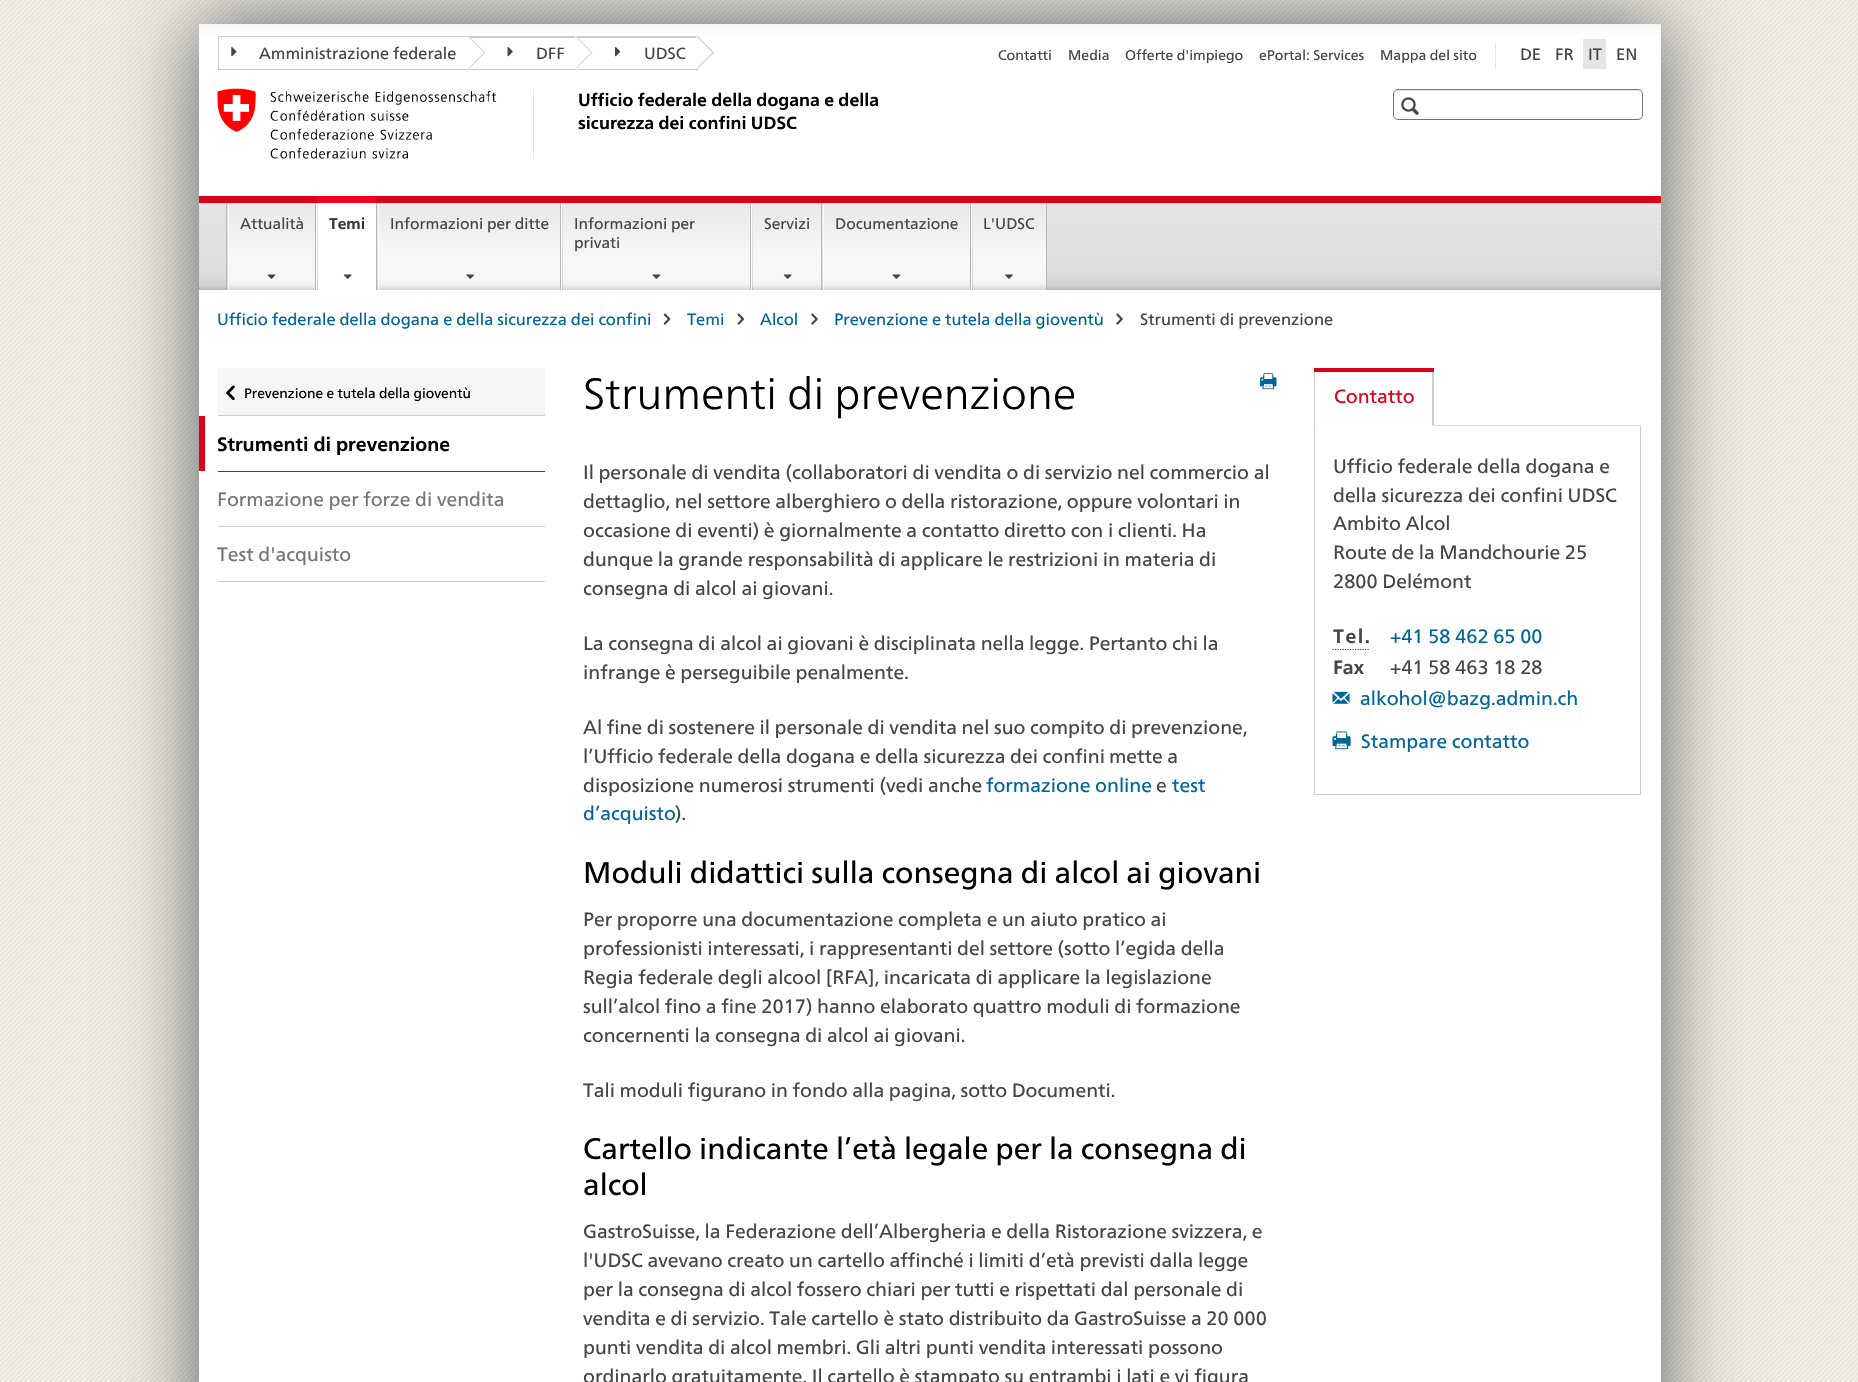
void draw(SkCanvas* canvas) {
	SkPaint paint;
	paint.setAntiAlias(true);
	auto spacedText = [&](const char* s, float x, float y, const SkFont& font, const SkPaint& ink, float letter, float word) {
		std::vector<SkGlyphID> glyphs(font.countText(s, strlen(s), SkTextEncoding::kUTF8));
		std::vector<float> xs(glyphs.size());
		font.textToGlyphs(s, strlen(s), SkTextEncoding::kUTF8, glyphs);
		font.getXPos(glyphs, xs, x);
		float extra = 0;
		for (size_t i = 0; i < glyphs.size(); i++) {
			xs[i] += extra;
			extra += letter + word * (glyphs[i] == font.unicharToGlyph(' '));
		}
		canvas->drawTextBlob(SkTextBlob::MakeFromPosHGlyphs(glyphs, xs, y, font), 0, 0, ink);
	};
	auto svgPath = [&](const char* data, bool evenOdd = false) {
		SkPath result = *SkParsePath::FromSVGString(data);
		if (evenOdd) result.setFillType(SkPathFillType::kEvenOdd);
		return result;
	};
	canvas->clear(0xffffffff);
	canvas->drawImageRect(SkImages::DeferredFromEncodedData(SkData::MakeFromFileName("img1.png")), SkRect::MakeXYWH(0, 0, 1858, 1382), SkSamplingOptions());
	paint.setColor(0x99000000);
	paint.setMaskFilter(SkMaskFilter::MakeBlur(kNormal_SkBlurStyle, 37.5));
	canvas->drawRect(SkRect::MakeXYWH(199, 24, 1462, 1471), paint);
	paint.setMaskFilter(nullptr);
	paint.setColor(0xffffffff);
	canvas->drawRect(SkRect::MakeXYWH(199, 290, 1462, 1092), paint);
	{
		const SkColor colors[] = {0xfff5f5f5, 0xffffffff, 0xffffffff};
		const float stops[] = {0, 0.07, 1};
		const SkPoint ends[] = {{930, 24}, {930, 196}};
		paint.setShader(SkGradientShader::MakeLinear(ends, colors, stops, 3, SkTileMode::kClamp));
		paint.setAlpha(255);
	}
	canvas->drawRect(SkRect::MakeXYWH(199, 24, 1462, 172), paint);
	paint.setShader(nullptr);
	paint.setColor(0xffcccccc);
	canvas->drawRect(SkRect::MakeXYWH(218, 36, 251, 1), paint);
	canvas->drawRect(SkRect::MakeXYWH(218, 69, 251, 1), paint);
	canvas->drawRect(SkRect::MakeXYWH(218, 36, 1, 34), paint);
	canvas->drawPath(svgPath("M469 69V36L485 52.5Z"), paint);
	paint.setColor(0xffffffff);
	canvas->drawPath(svgPath("M467.5 69V36L484 52.5Z"), paint);
	canvas->drawImageRect(SkImages::DeferredFromEncodedData(SkData::MakeFromFileName("img2.png")), SkRect::MakeXYWH(231, 47, 6, 10), SkSamplingOptions());
	SkFont f1(fontMgr->matchFamilyStyle("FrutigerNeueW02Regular", SkFontStyle::Normal()), 16.25);
	f1.setSubpixel(true);
	paint.setColor(0xff454545);
	canvas->drawString("Amministrazione federale", 259, 59, f1, paint);
	paint.setColor(0xffcccccc);
	canvas->drawPath(svgPath("M469 36H576V38H470Z"), paint);
	canvas->drawPath(svgPath("M576 70H469L470 69H576Z"), paint);
	canvas->drawPath(svgPath("M576 69V36L592.5 52.5Z"), paint);
	paint.setColor(0xffffffff);
	canvas->drawPath(svgPath("M575 69V36L591 52.5Z"), paint);
	canvas->drawImageRect(SkImages::DeferredFromEncodedData(SkData::MakeFromFileName("img3.png")), SkRect::MakeXYWH(507, 47, 6, 10), SkSamplingOptions());
	paint.setColor(0xff454545);
	canvas->drawString("DFF", 536, 59, f1, paint);
	paint.setColor(0xffcccccc);
	canvas->drawPath(svgPath("M576 36H698V38H578Z"), paint);
	canvas->drawPath(svgPath("M698 70H576L578 69H698Z"), paint);
	canvas->drawPath(svgPath("M697.5 69V36L714 52.5Z"), paint);
	paint.setColor(0xffffffff);
	canvas->drawPath(svgPath("M696 69V36L712.5 52.5Z"), paint);
	canvas->drawImageRect(SkImages::DeferredFromEncodedData(SkData::MakeFromFileName("img4.png")), SkRect::MakeXYWH(615, 47, 6, 10), SkSamplingOptions());
	paint.setColor(0xff454545);
	canvas->drawString("UDSC", 644, 59, f1, paint);
	SkFont f2(fontMgr->matchFamilyStyle("FrutigerNeueW02Regular", SkFontStyle::Normal()), 14);
	f2.setSubpixel(true);
	canvas->drawString("Contatti", 998, 60, f2, paint);
	canvas->drawString("Media", 1068, 60, f2, paint);
	canvas->drawString("Offerte d'impiego", 1125, 60, f2, paint);
	canvas->drawString("ePortal: Services", 1259, 60, f2, paint);
	canvas->drawString("Mappa del sito", 1380, 60, f2, paint);
	paint.setColor(0xffe5e5e5);
	canvas->drawRect(SkRect::MakeXYWH(1495, 43, 1, 25), paint);
	SkFont f3(fontMgr->matchFamilyStyle("FrutigerNeueW02Regular", SkFontStyle::Normal()), 16.35);
	f3.setSubpixel(true);
	paint.setColor(0xff454545);
	canvas->drawString("DE", 1520, 60, f3, paint);
	canvas->drawString("FR", 1555, 60, f3, paint);
	paint.setColor(0xffe5e5e5);
	canvas->drawRect(SkRect::MakeXYWH(1583, 39, 23, 30), paint);
	paint.setColor(0xff454545);
	canvas->drawString("IT", 1588, 60, f3, paint);
	canvas->drawString("EN", 1616, 60, f3, paint);
	paint.setColor(0xffe5e5e5);
	canvas->drawRect(SkRect::MakeXYWH(533, 89, 1, 70), paint);
	canvas->drawImageRect(SkImages::DeferredFromEncodedData(SkData::MakeFromFileName("img5.png")), SkRect::MakeXYWH(217, 88, 280, 71), SkSamplingOptions());
	SkFont f4(fontMgr->matchFamilyStyle("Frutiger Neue", SkFontStyle::Bold()), 17.5);
	f4.setSubpixel(true);
	paint.setColor(0xff000000);
	canvas->drawString("Ufficio federale della dogana e della", 578, 106, f4, paint);
	canvas->drawString("sicurezza dei confini UDSC", 578, 129, f4, paint);
	paint.setColor(0xffececec);
	canvas->drawPath(svgPath("M1398 91H1638C1640 91 1641 93 1641 95V94C1641 92 1639 90 1637 90H1398C1396 90 1394 92 1394 94V95C1394 93 1395 91 1398 91Z"), paint);
	paint.setStroke(true);
	paint.setStrokeWidth(1);
	paint.setColor(0xff757575);
	canvas->drawRoundRect(SkRect::MakeXYWH(1393.5, 89.5, 249, 30), 4.5, 4.5, paint);
	canvas->drawImageRect(SkImages::DeferredFromEncodedData(SkData::MakeFromFileName("img6.png")), SkRect::MakeXYWH(1401, 97, 18, 18), SkSamplingOptions());
	paint.setStroke(false);
	{
		const SkColor colors[] = {0xffe4e4e4, 0xffe2e2e2, 0xffdddddd, 0xffd5d5d5, 0xffcfcfcf, 0xffbebebe};
		const float stops[] = {0, 0.39, 0.79, 0.91, 0.95, 0.99};
		const SkPoint ends[] = {{930, 202}, {930, 290}};
		paint.setShader(SkGradientShader::MakeLinear(ends, colors, stops, 6, SkTileMode::kClamp));
		paint.setAlpha(255);
	}
	canvas->drawRect(SkRect::MakeXYWH(199, 203, 1462, 87), paint);
	paint.setShader(nullptr);
	paint.setColor(0xffdc0018);
	canvas->drawRect(SkRect::MakeXYWH(199, 196, 1462, 7), paint);
	paint.setColor(0xffb8b8b8);
	canvas->drawRect(SkRect::MakeXYWH(226, 203, 1, 87), paint);
	canvas->drawRect(SkRect::MakeXYWH(315, 203, 1, 87), paint);
	paint.setColor(0xffffffff);
	canvas->drawRect(SkRect::MakeXYWH(228, 203, 1, 87), paint);
	{
		const SkColor colors[] = {0xffe8e8e8, 0xfff7f7f7, 0xfff7f7f7, 0xfff5f5f5, 0xffececec, 0xffd7d7d7};
		const float stops[] = {0, 0.61, 0.89, 0.91, 0.95, 1};
		const SkPoint ends[] = {{272, 203}, {272, 290}};
		paint.setShader(SkGradientShader::MakeLinear(ends, colors, stops, 6, SkTileMode::kClamp));
		paint.setAlpha(255);
	}
	canvas->drawRect(SkRect::MakeXYWH(229, 203, 86, 87), paint);
	SkFont f5(fontMgr->matchFamilyStyle("FrutigerNeueW02Regular", SkFontStyle::Normal()), 15.4);
	f5.setSubpixel(true);
	paint.setShader(nullptr);
	paint.setColor(0xff454545);
	canvas->drawString("Attualità", 240, 229, f5, paint);
	canvas->drawImageRect(SkImages::DeferredFromEncodedData(SkData::MakeFromFileName("img7.png")), SkRect::MakeXYWH(267, 274, 9, 5), SkSamplingOptions());
	paint.setColor(0xffb8b8b8);
	canvas->drawRect(SkRect::MakeXYWH(376, 203, 1, 87), paint);
	paint.setColor(0xffffffff);
	canvas->drawRect(SkRect::MakeXYWH(316, 203, 1, 87), paint);
	canvas->drawRect(SkRect::MakeXYWH(318, 203, 58, 87), paint);
	paint.setColor(0xfff7001d);
	canvas->drawRect(SkRect::MakeXYWH(318, 196, 58, 7), paint);
	SkFont f6(fontMgr->matchFamilyStyle("Frutiger Neue", SkFontStyle::Bold()), 15.4);
	f6.setSubpixel(true);
	paint.setColor(0xff333333);
	canvas->drawString("Temi", 329, 229, f6, paint);
	canvas->drawImageRect(SkImages::DeferredFromEncodedData(SkData::MakeFromFileName("img8.png")), SkRect::MakeXYWH(343, 274, 9, 5), SkSamplingOptions());
	paint.setColor(0xffb8b8b8);
	canvas->drawRect(SkRect::MakeXYWH(560, 203, 1, 87), paint);
	paint.setColor(0xffffffff);
	canvas->drawRect(SkRect::MakeXYWH(378, 203, 1, 87), paint);
	{
		const SkColor colors[] = {0xffe8e8e8, 0xfff7f7f7, 0xfff7f7f7, 0xfff5f5f5, 0xffececec, 0xffd7d7d7};
		const float stops[] = {0, 0.61, 0.89, 0.91, 0.95, 1};
		const SkPoint ends[] = {{469, 203}, {469, 290}};
		paint.setShader(SkGradientShader::MakeLinear(ends, colors, stops, 6, SkTileMode::kClamp));
		paint.setAlpha(255);
	}
	canvas->drawRect(SkRect::MakeXYWH(379, 203, 181, 87), paint);
	paint.setShader(nullptr);
	paint.setColor(0xff454545);
	canvas->drawString("Informazioni per ditte", 390, 229, f5, paint);
	canvas->drawImageRect(SkImages::DeferredFromEncodedData(SkData::MakeFromFileName("img9.png")), SkRect::MakeXYWH(466, 274, 9, 5), SkSamplingOptions());
	paint.setColor(0xffb8b8b8);
	canvas->drawRect(SkRect::MakeXYWH(750, 203, 1, 87), paint);
	paint.setColor(0xffffffff);
	canvas->drawRect(SkRect::MakeXYWH(561, 203, 1, 87), paint);
	{
		const SkColor colors[] = {0xffe8e8e8, 0xfff7f7f7, 0xfff7f7f7, 0xfff5f5f5, 0xffececec, 0xffd7d7d7};
		const float stops[] = {0, 0.61, 0.89, 0.91, 0.95, 1};
		const SkPoint ends[] = {{656, 203}, {656, 290}};
		paint.setShader(SkGradientShader::MakeLinear(ends, colors, stops, 6, SkTileMode::kClamp));
		paint.setAlpha(255);
	}
	canvas->drawRect(SkRect::MakeXYWH(563, 203, 187, 87), paint);
	paint.setShader(nullptr);
	paint.setColor(0xff454545);
	canvas->drawString("Informazioni per", 574, 229, f5, paint);
	canvas->drawString("privati", 574, 248, f5, paint);
	canvas->drawImageRect(SkImages::DeferredFromEncodedData(SkData::MakeFromFileName("img7.png")), SkRect::MakeXYWH(652, 274, 9, 5), SkSamplingOptions());
	paint.setColor(0xffb8b8b8);
	canvas->drawRect(SkRect::MakeXYWH(821, 203, 1, 87), paint);
	paint.setColor(0xffffffff);
	canvas->drawRect(SkRect::MakeXYWH(751, 203, 1, 87), paint);
	{
		const SkColor colors[] = {0xffe8e8e8, 0xfff7f7f7, 0xfff7f7f7, 0xfff5f5f5, 0xffececec, 0xffd7d7d7};
		const float stops[] = {0, 0.61, 0.89, 0.91, 0.95, 1};
		const SkPoint ends[] = {{787, 203}, {787, 290}};
		paint.setShader(SkGradientShader::MakeLinear(ends, colors, stops, 6, SkTileMode::kClamp));
		paint.setAlpha(255);
	}
	canvas->drawRect(SkRect::MakeXYWH(753, 203, 68, 87), paint);
	paint.setShader(nullptr);
	paint.setColor(0xff454545);
	canvas->drawString("Servizi", 764, 229, f5, paint);
	canvas->drawImageRect(SkImages::DeferredFromEncodedData(SkData::MakeFromFileName("img10.png")), SkRect::MakeXYWH(783, 274, 9, 5), SkSamplingOptions());
	paint.setColor(0xffb8b8b8);
	canvas->drawRect(SkRect::MakeXYWH(970, 203, 1, 87), paint);
	paint.setColor(0xffffffff);
	canvas->drawRect(SkRect::MakeXYWH(823, 203, 1, 87), paint);
	{
		const SkColor colors[] = {0xffe8e8e8, 0xfff7f7f7, 0xfff7f7f7, 0xfff5f5f5, 0xffececec, 0xffd7d7d7};
		const float stops[] = {0, 0.61, 0.89, 0.91, 0.95, 1};
		const SkPoint ends[] = {{897, 203}, {897, 290}};
		paint.setShader(SkGradientShader::MakeLinear(ends, colors, stops, 6, SkTileMode::kClamp));
		paint.setAlpha(255);
	}
	canvas->drawRect(SkRect::MakeXYWH(824, 203, 146, 87), paint);
	paint.setShader(nullptr);
	paint.setColor(0xff454545);
	canvas->drawString("Documentazione", 835, 229, f5, paint);
	canvas->drawImageRect(SkImages::DeferredFromEncodedData(SkData::MakeFromFileName("img7.png")), SkRect::MakeXYWH(892, 274, 9, 5), SkSamplingOptions());
	paint.setColor(0xffb8b8b8);
	canvas->drawRect(SkRect::MakeXYWH(1046, 203, 1, 87), paint);
	paint.setColor(0xffffffff);
	canvas->drawRect(SkRect::MakeXYWH(971, 203, 1, 87), paint);
	{
		const SkColor colors[] = {0xffe8e8e8, 0xfff7f7f7, 0xfff7f7f7, 0xfff5f5f5, 0xffececec, 0xffd7d7d7};
		const float stops[] = {0, 0.61, 0.89, 0.91, 0.95, 1};
		const SkPoint ends[] = {{1009, 203}, {1009, 290}};
		paint.setShader(SkGradientShader::MakeLinear(ends, colors, stops, 6, SkTileMode::kClamp));
		paint.setAlpha(255);
	}
	canvas->drawRect(SkRect::MakeXYWH(973, 203, 73, 87), paint);
	paint.setShader(nullptr);
	paint.setColor(0xff454545);
	canvas->drawString("L'UDSC", 983, 229, f5, paint);
	canvas->drawImageRect(SkImages::DeferredFromEncodedData(SkData::MakeFromFileName("img11.png")), SkRect::MakeXYWH(1005, 274, 8, 5), SkSamplingOptions());
	paint.setColor(0xff006699);
	canvas->drawString("Ufficio federale della dogana e della sicurezza dei confini", 217, 325, f3, paint);
	canvas->drawImageRect(SkImages::DeferredFromEncodedData(SkData::MakeFromFileName("img12.png")), SkRect::MakeXYWH(663, 313, 8, 12), SkSamplingOptions());
	canvas->drawString("Temi", 687, 325, f3, paint);
	canvas->drawImageRect(SkImages::DeferredFromEncodedData(SkData::MakeFromFileName("img13.png")), SkRect::MakeXYWH(737, 313, 7, 12), SkSamplingOptions());
	canvas->drawString("Alcol", 760, 325, f3, paint);
	canvas->drawImageRect(SkImages::DeferredFromEncodedData(SkData::MakeFromFileName("img14.png")), SkRect::MakeXYWH(811, 313, 7, 12), SkSamplingOptions());
	canvas->drawString("Prevenzione e tutela della gioventù", 834, 325, f3, paint);
	canvas->drawImageRect(SkImages::DeferredFromEncodedData(SkData::MakeFromFileName("img14.png")), SkRect::MakeXYWH(1116, 313, 7, 12), SkSamplingOptions());
	paint.setColor(0xff454545);
	canvas->drawString("Strumenti di prevenzione", 1140, 325, f3, paint);
	paint.setColor(0xfff5f5f5);
	canvas->drawRect(SkRect::MakeXYWH(218, 368, 327, 47), paint);
	paint.setColor(0xffcccccc);
	canvas->drawRect(SkRect::MakeXYWH(218, 415, 327, 1), paint);
	canvas->drawImageRect(SkImages::DeferredFromEncodedData(SkData::MakeFromFileName("img15.png")), SkRect::MakeXYWH(226, 385, 9, 15), SkSamplingOptions());
	SkFont f7(fontMgr->matchFamilyStyle("FrutigerNeueW02Regular", SkFontStyle::Normal()), 13.75);
	f7.setSubpixel(true);
	paint.setColor(0xff000000);
	canvas->drawString("Prevenzione e tutela della gioventù", 244, 398, f7, paint);
	paint.setColor(0xff454545);
	canvas->drawRect(SkRect::MakeXYWH(218, 471, 327, 1), paint);
	paint.setColor(0xffdc0018);
	canvas->drawRect(SkRect::MakeXYWH(199, 416, 6, 55), paint);
	SkFont f8(fontMgr->matchFamilyStyle("Frutiger Neue", SkFontStyle::Bold()), 19.25);
	f8.setSubpixel(true);
	paint.setColor(0xff000000);
	canvas->drawString("Strumenti di prevenzione", 217, 451, f8, paint);
	paint.setColor(0xffcccccc);
	canvas->drawRect(SkRect::MakeXYWH(218, 526, 327, 1), paint);
	SkFont f9(fontMgr->matchFamilyStyle("FrutigerNeueW02Regular", SkFontStyle::Normal()), 19.25);
	f9.setSubpixel(true);
	paint.setColor(0xff757575);
	canvas->drawString("Formazione per forze di vendita", 217, 506, f9, paint);
	paint.setColor(0xffcccccc);
	canvas->drawRect(SkRect::MakeXYWH(218, 581, 327, 1), paint);
	paint.setColor(0xff757575);
	canvas->drawString("Test d'acquisto", 217, 561, f9, paint);
	SkFont f10(fontMgr->matchFamilyStyle("Frutiger Neue", SkFontStyle(300, SkFontStyle::kNormal_Width, SkFontStyle::kUpright_Slant)), 43.75);
	f10.setSubpixel(true);
	paint.setColor(0xff000000);
	canvas->drawString("Strumenti di prevenzione", 583, 409, f10, paint);
	canvas->drawImageRect(SkImages::DeferredFromEncodedData(SkData::MakeFromFileName("img16.png")), SkRect::MakeXYWH(1260, 373, 17, 17), SkSamplingOptions());
	paint.setColor(0xff454545);
	canvas->drawString("Il personale di vendita (collaboratori di vendita o di servizio nel commercio al", 583, 479, f9, paint);
	canvas->drawString("dettaglio, nel settore alberghiero o della ristorazione, oppure volontari in", 583, 508, f9, paint);
	canvas->drawString("occasione di eventi) è giornalmente a contatto diretto con i clienti. Ha", 583, 537, f9, paint);
	canvas->drawString("dunque la grande responsabilità di applicare le restrizioni in materia di", 583, 566, f9, paint);
	canvas->drawString("consegna di alcol ai giovani.", 583, 595, f9, paint);
	canvas->drawString("La consegna di alcol ai giovani è disciplinata nella legge. Pertanto chi la", 583, 650, f9, paint);
	canvas->drawString("infrange è perseguibile penalmente.", 583, 679, f9, paint);
	canvas->drawString("Al fine di sostenere il personale di vendita nel suo compito di prevenzione,", 583, 734, f9, paint);
	canvas->drawString("l’Ufficio federale della dogana e della sicurezza dei confini", 583, 763, f9, paint);
	canvas->drawString("mette a", 1109, 763, f9, paint);
	canvas->drawString("disposizione numerosi strumenti (vedi anche", 583, 792, f9, paint);
	paint.setColor(0xff006699);
	canvas->drawString("formazione online", 986, 792, f9, paint);
	paint.setColor(0xff454545);
	canvas->drawString("e", 1156, 792, f9, paint);
	paint.setColor(0xff006699);
	canvas->drawString("test", 1172, 792, f9, paint);
	canvas->drawString("d’acquisto", 583, 820, f9, paint);
	paint.setColor(0xff454545);
	canvas->drawString(").", 675, 820, f9, paint);
	SkFont f11(fontMgr->matchFamilyStyle("FrutigerNeueW02Regular", SkFontStyle::Normal()), 29.75);
	f11.setSubpixel(true);
	paint.setColor(0xff000000);
	canvas->drawString("Moduli didattici sulla consegna di alcol ai giovani", 583, 883, f11, paint);
	paint.setColor(0xff454545);
	canvas->drawString("Per proporre una documentazione completa e un aiuto pratico ai", 583, 926, f9, paint);
	canvas->drawString("professionisti interessati, i rappresentanti del settore (sotto l’egida della", 583, 955, f9, paint);
	canvas->drawString("Regia federale degli alcool [RFA], incaricata di applicare la legislazione", 583, 984, f9, paint);
	canvas->drawString("sull’alcol fino a fine 2017) hanno elaborato quattro moduli di formazione", 583, 1013, f9, paint);
	canvas->drawString("concernenti la consegna di alcol ai giovani.", 583, 1042, f9, paint);
	canvas->drawString("Tali moduli figurano in fondo alla pagina, sotto Documenti.", 583, 1097, f9, paint);
	paint.setColor(0xff000000);
	canvas->drawString("Cartello indicante l’età legale per la consegna di", 583, 1159, f11, paint);
	canvas->drawString("alcol", 583, 1195, f11, paint);
	paint.setColor(0xff454545);
	canvas->drawString("GastroSuisse, la Federazione dell’Albergheria e della Ristorazione svizzera, e", 583, 1238, f9, paint);
	canvas->drawString("l'UDSC avevano creato un cartello affinché i limiti d’età previsti dalla legge", 583, 1267, f9, paint);
	canvas->drawString("per la consegna di alcol fossero chiari per tutti e rispettati dal personale di", 583, 1296, f9, paint);
	canvas->drawString("vendita e di servizio. Tale cartello è stato distribuito da GastroSuisse a 20 000", 583, 1325, f9, paint);
	canvas->drawString("punti vendita di alcol membri. Gli altri punti vendita interessati possono", 583, 1354, f9, paint);
	canvas->drawString("ordinarlo gratuitamente. Il cartello è stampato su entrambi i lati e vi figura", 583, 1383, f9, paint);
	paint.setColor(0xffdddddd);
	canvas->drawRect(SkRect::MakeXYWH(1434, 425, 207, 1), paint);
	paint.setColor(0xffcccccc);
	canvas->drawPath(svgPath("M1434 368V426L1432 425V369Z"), paint);
	canvas->drawPath(svgPath("M1314 426V368L1315 369V425Z"), paint);
	paint.setColor(0xffdc0018);
	canvas->drawRect(SkRect::MakeXYWH(1314, 368, 120, 4), paint);
	canvas->drawString("Contatto", 1334, 403, f9, paint);
	paint.setColor(0xffcccccc);
	canvas->drawRect(SkRect::MakeXYWH(1640, 426, 1, 369), paint);
	canvas->drawRect(SkRect::MakeXYWH(1314, 794, 327, 1), paint);
	canvas->drawRect(SkRect::MakeXYWH(1314, 426, 1, 369), paint);
	paint.setColor(0xff454545);
	canvas->drawString("Ufficio federale della dogana e", 1333, 473, f9, paint);
	canvas->drawString("della sicurezza dei confini UDSC", 1333, 502, f9, paint);
	canvas->drawString("Ambito Alcol", 1333, 530, f9, paint);
	canvas->drawString("Route de la Mandchourie 25", 1333, 559, f9, paint);
	canvas->drawString("2800 Delémont", 1333, 588, f9, paint);
	canvas->save();
	canvas->clipRect(SkRect::MakeXYWH(1333, 623, 38, 30));
	spacedText("Tel.", 1333, 643, f8, paint, 1.5, 0);
	canvas->restore();
	paint.setStroke(true);
	paint.setStrokeWidth(1.2);
	paint.setPathEffect(SkDashPathEffect::Make({{1.25f, 1.25f}}, 0));
	canvas->drawPath(svgPath("M1332.5 649.5H1370"), paint);
	paint.setPathEffect(nullptr);
	paint.setStroke(false);
	paint.setColor(0xff006699);
	canvas->drawString("+41 58 462 65 00", 1390, 643, f9, paint);
	paint.setColor(0xff454545);
	canvas->drawString("Fax", 1333, 674, f8, paint);
	canvas->drawString("+41 58 463 18 28", 1390, 674, f9, paint);
	canvas->drawImageRect(SkImages::DeferredFromEncodedData(SkData::MakeFromFileName("img17.png")), SkRect::MakeXYWH(1332, 691, 18, 13), SkSamplingOptions());
	paint.setColor(0xff006699);
	canvas->drawString("alkohol@bazg.admin.ch", 1360, 705, f9, paint);
	canvas->drawImageRect(SkImages::DeferredFromEncodedData(SkData::MakeFromFileName("img18.png")), SkRect::MakeXYWH(1332, 731, 19, 19), SkSamplingOptions());
	canvas->drawString("Stampare contatto", 1361, 748, f9, paint);
}
